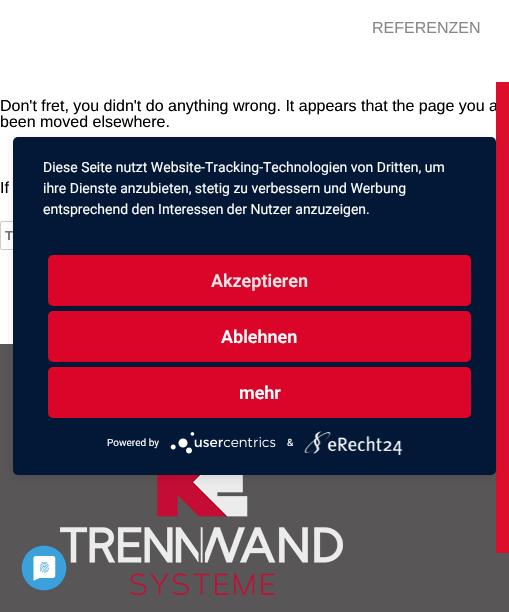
void draw(SkCanvas* canvas) {
	SkPaint paint;
	paint.setAntiAlias(true);
	auto svgPath = [&](const char* data, bool evenOdd = false) {
		SkPath result = *SkParsePath::FromSVGString(data);
		if (evenOdd) result.setFillType(SkPathFillType::kEvenOdd);
		return result;
	};
	canvas->clear(0xffffffff);
	SkFont f1(fontMgr->matchFamilyStyle("Liberation Sans", SkFontStyle::Normal()), 16);
	f1.setSubpixel(true);
	paint.setColor(0xff888888);
	canvas->drawString("REFERENZEN", 372, 33, f1, paint);
	paint.setColor(0xff000000);
	canvas->drawString("Don't fret, you didn't do anything wrong. It appears that the page you a", 0, 111, f1, paint);
	canvas->drawString("been moved elsewhere.", 0, 127, f1, paint);
	canvas->drawString("If", 0, 193, f1, paint);
	paint.setStroke(true);
	paint.setStrokeWidth(1);
	paint.setColor(0xffcccccc);
	canvas->drawRoundRect(SkRect::MakeXYWH(0.5, 221.5, 199, 28), 1.5, 1.5, paint);
	SkFont f2(fontMgr->matchFamilyStyle("Liberation Sans", SkFontStyle::Bold()), 13);
	f2.setSubpixel(true);
	paint.setStroke(false);
	paint.setColor(0xff777777);
	canvas->drawString("T", 5, 240, f2, paint);
	paint.setColor(0xff585657);
	canvas->drawRect(SkRect::MakeXYWH(0, 344, 509, 268), paint);
	canvas->drawImageRect(SkImages::DeferredFromEncodedData(SkData::MakeFromFileName("img1.png")), SkRect::MakeXYWH(60, 475, 283, 120), SkSamplingOptions());
	paint.setColor(0xffdc0e2c);
	canvas->drawRect(SkRect::MakeXYWH(496, 82, 13, 471), paint);
	paint.setColor(0x1a000000);
	paint.setMaskFilter(SkMaskFilter::MakeBlur(kNormal_SkBlurStyle, 5));
	canvas->drawRoundRect(SkRect::MakeXYWH(13, 140, 483, 338), 5, 5, paint);
	paint.setMaskFilter(nullptr);
	canvas->save();
	canvas->clipPath(svgPath("M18 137H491C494 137 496 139 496 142V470C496 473 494 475 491 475H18C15 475 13 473 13 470V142C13 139 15 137 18 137Z"), true);
	paint.setColor(0x4d000000);
	paint.setMaskFilter(SkMaskFilter::MakeBlur(kNormal_SkBlurStyle, 18));
	canvas->drawRect(SkRect::MakeXYWH(13, 143, 483, 338), paint);
	paint.setMaskFilter(nullptr);
	canvas->restore();
	paint.setColor(0xff021836);
	canvas->drawRoundRect(SkRect::MakeXYWH(13, 137, 483, 338), 5, 5, paint);
	SkFont f3(fontMgr->matchFamilyStyle("Roboto", SkFontStyle::Normal()), 14);
	f3.setSubpixel(true);
	paint.setColor(0xffffffff);
	canvas->drawString("Diese Seite nutzt Website-Tracking-Technologien von Dritten, um", 43, 172, f3, paint);
	canvas->drawString("ihre Dienste anzubieten, stetig zu verbessern und Werbung", 43, 193, f3, paint);
	canvas->drawString("entsprechend den Interessen der Nutzer anzuzeigen.", 43, 214, f3, paint);
	paint.setColor(0xffdb0529);
	canvas->drawRoundRect(SkRect::MakeXYWH(48, 255, 423, 51), 5, 5, paint);
	SkFont f4(fontMgr->matchFamilyStyle("Roboto", SkFontStyle(600, SkFontStyle::kNormal_Width, SkFontStyle::kUpright_Slant)), 18);
	f4.setSubpixel(true);
	paint.setColor(0xffe6e6e6);
	canvas->drawString("Akzeptieren", 211, 287, f4, paint);
	paint.setColor(0xffdb0529);
	canvas->drawRoundRect(SkRect::MakeXYWH(48, 311, 423, 51), 5, 5, paint);
	paint.setColor(0xffffffff);
	canvas->drawString("Ablehnen", 221, 343, f4, paint);
	paint.setColor(0xffdb0529);
	canvas->drawRoundRect(SkRect::MakeXYWH(48, 367, 423, 51), 5, 5, paint);
	paint.setColor(0xffffffff);
	canvas->drawString("mehr", 239, 399, f4, paint);
	SkFont f5(fontMgr->matchFamilyStyle("Roboto", SkFontStyle::Normal()), 10);
	f5.setSubpixel(true);
	canvas->drawString("Powered by", 107, 446, f5, paint);
	canvas->drawImageRect(SkImages::DeferredFromEncodedData(SkData::MakeFromFileName("img2.png")), SkRect::MakeXYWH(170, 432, 106, 22), SkSamplingOptions());
	canvas->drawString("&", 287, 446, f5, paint);
	canvas->drawImageRect(SkImages::DeferredFromEncodedData(SkData::MakeFromFileName("img3.png")), SkRect::MakeXYWH(304, 431, 99, 24), SkSamplingOptions());
	canvas->drawImageRect(SkImages::DeferredFromEncodedData(SkData::MakeFromFileName("img4.png")), SkRect::MakeXYWH(21, 545, 46, 46), SkSamplingOptions());
}
